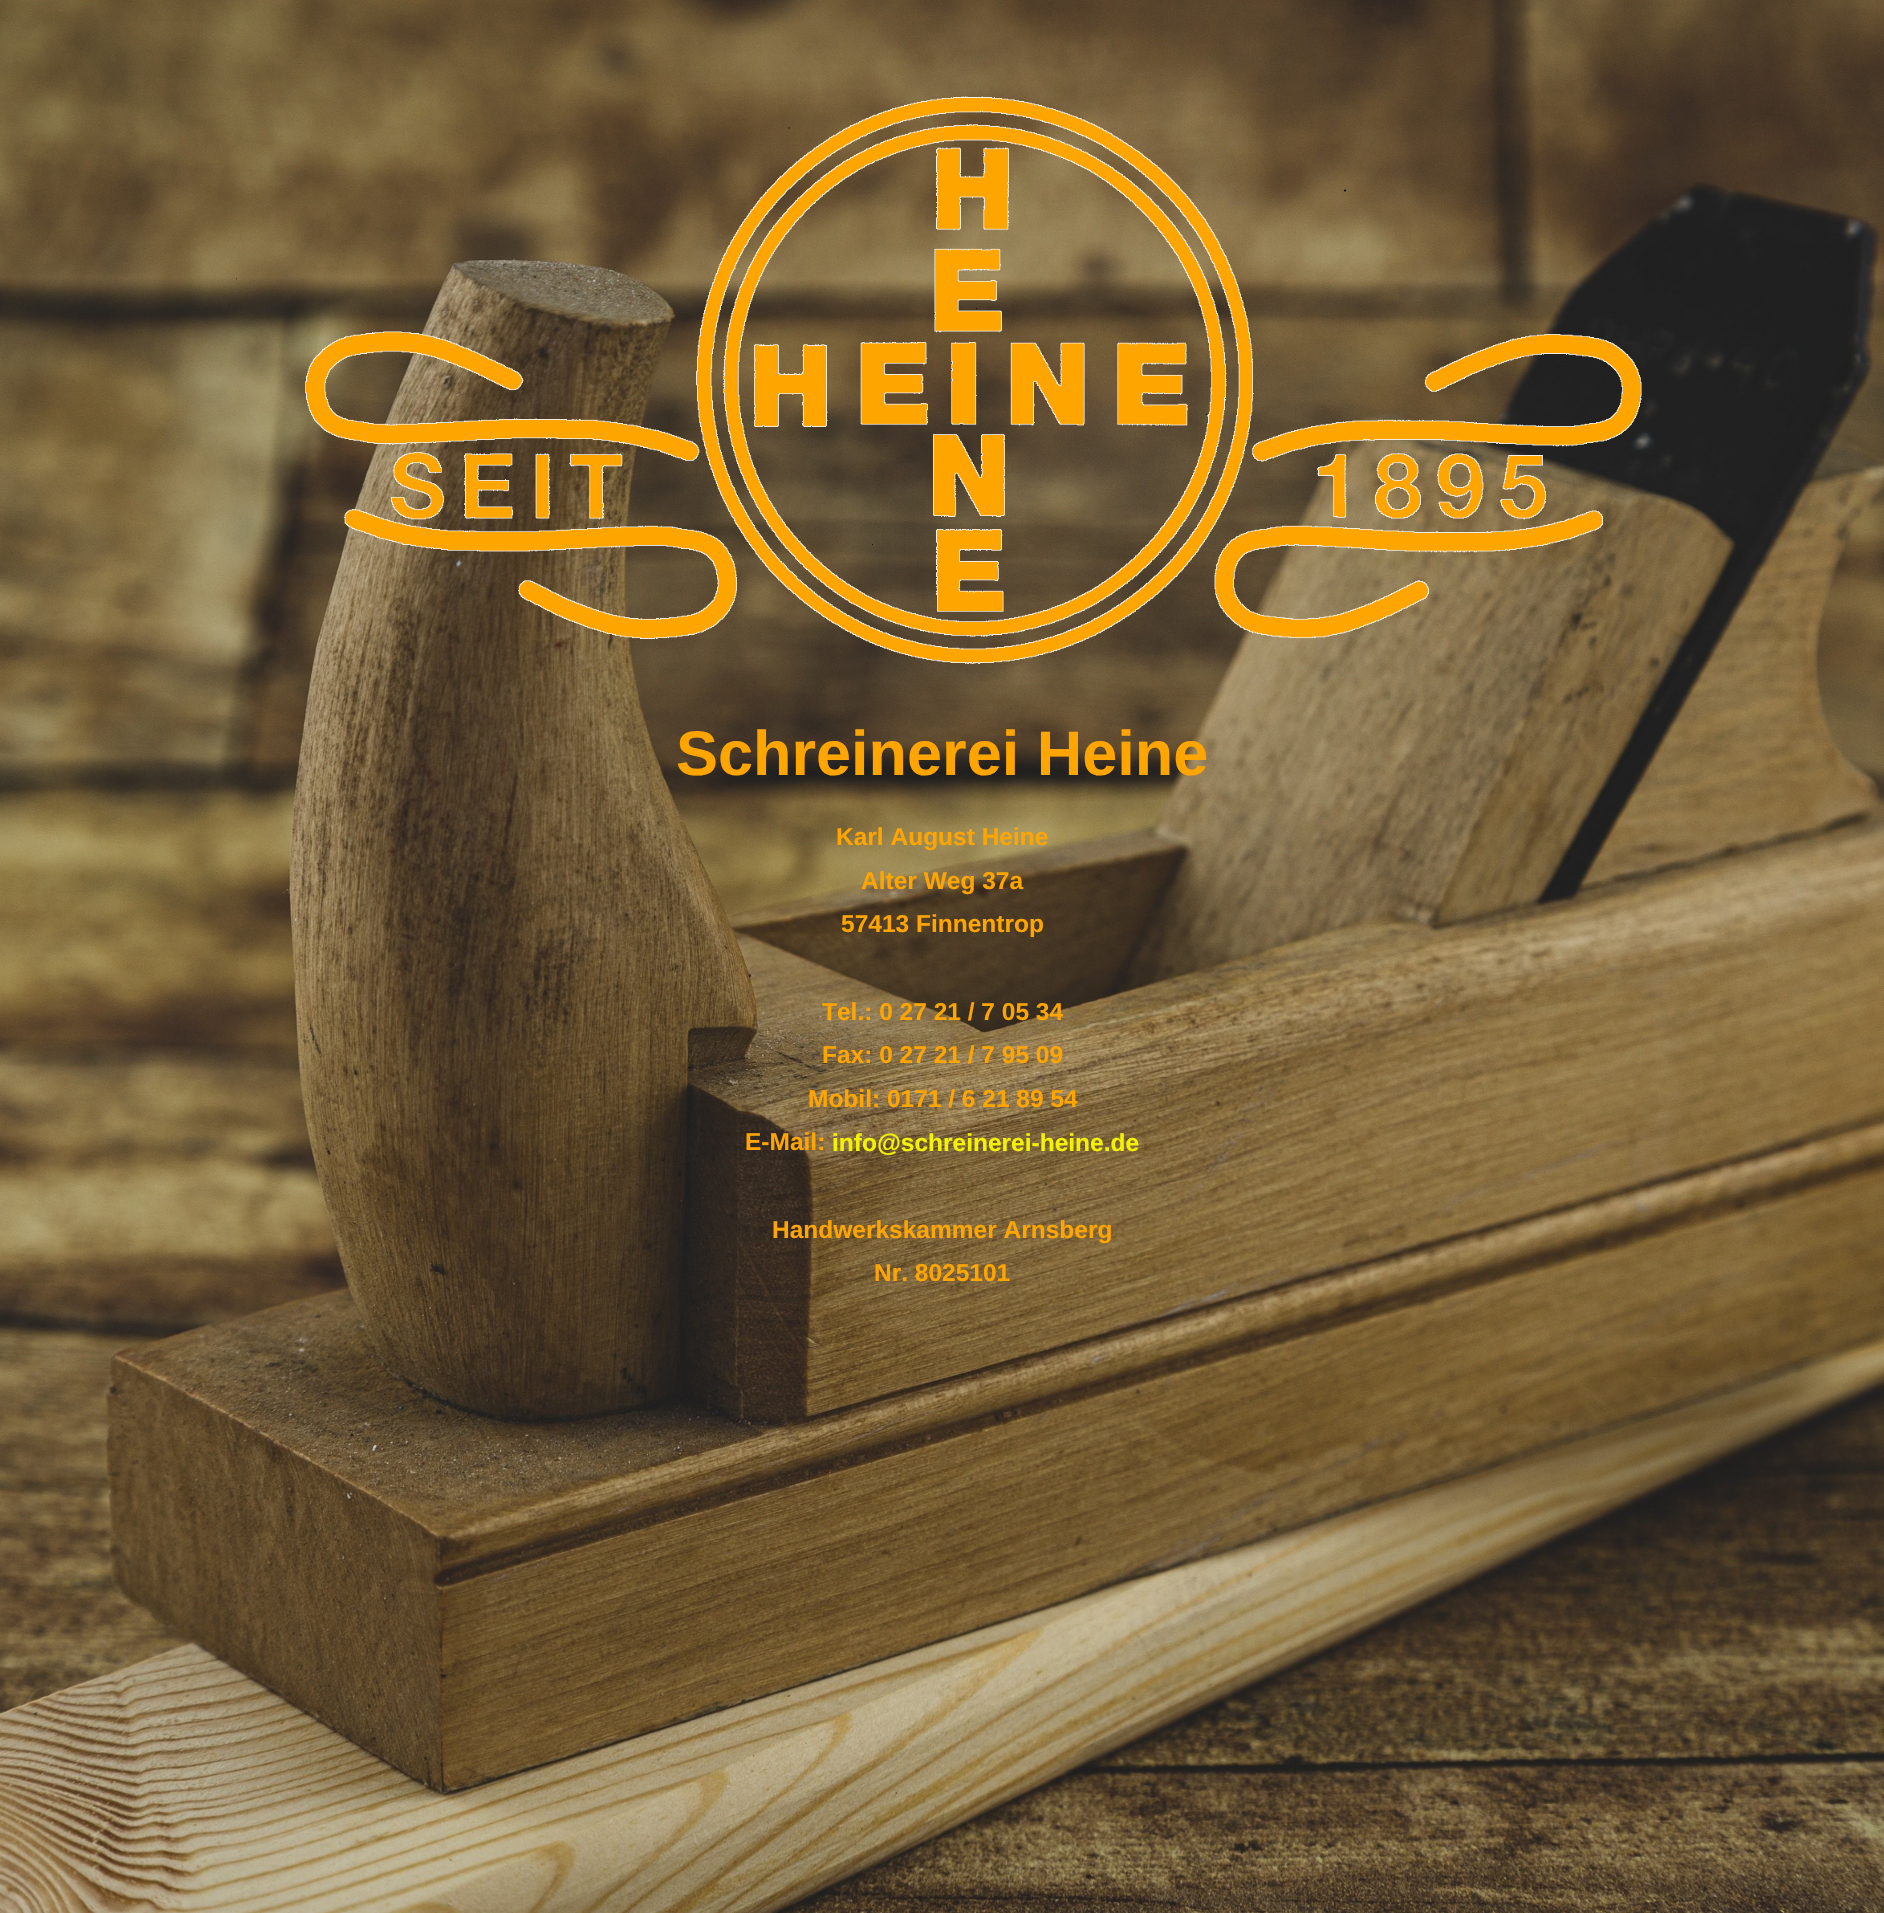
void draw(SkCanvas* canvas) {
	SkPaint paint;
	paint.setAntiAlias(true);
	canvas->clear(0xffffffff);
	canvas->drawImageRect(SkImages::DeferredFromEncodedData(SkData::MakeFromFileName("img1.png")), SkRect::MakeXYWH(0, 0, 1884, 1913), SkSamplingOptions());
	canvas->drawImageRect(SkImages::DeferredFromEncodedData(SkData::MakeFromFileName("img2.png")), SkRect::MakeXYWH(236, 96, 1406, 613), SkSamplingOptions());
	SkFont f1(fontMgr->matchFamilyStyle("Liberation Sans", SkFontStyle::Bold()), 63);
	f1.setSubpixel(true);
	paint.setColor(0xffffa500);
	canvas->drawString("Schreinerei Heine", 676, 775, f1, paint);
	SkFont f2(fontMgr->matchFamilyStyle("Liberation Sans", SkFontStyle::Bold()), 24.5);
	f2.setSubpixel(true);
	canvas->drawString("Karl August Heine", 836, 845, f2, paint);
	canvas->drawString("Alter Weg 37a", 861, 889, f2, paint);
	canvas->drawString("57413 Finnentrop", 841, 932, f2, paint);
	canvas->drawString("Tel.: 0 27 21 / 7 05 34", 822, 1020, f2, paint);
	canvas->drawString("Fax: 0 27 21 / 7 95 09", 822, 1063, f2, paint);
	canvas->drawString("Mobil: 0171 / 6 21 89 54", 808, 1107, f2, paint);
	canvas->drawString("E-Mail:", 745, 1150, f2, paint);
	paint.setColor(0xfff3f300);
	canvas->drawString("info@schreinerei-heine.de", 832, 1151, f2, paint);
	paint.setColor(0xffffa500);
	canvas->drawString("Handwerkskammer Arnsberg", 772, 1238, f2, paint);
	canvas->drawString("Nr. 8025101", 874, 1281, f2, paint);
}
